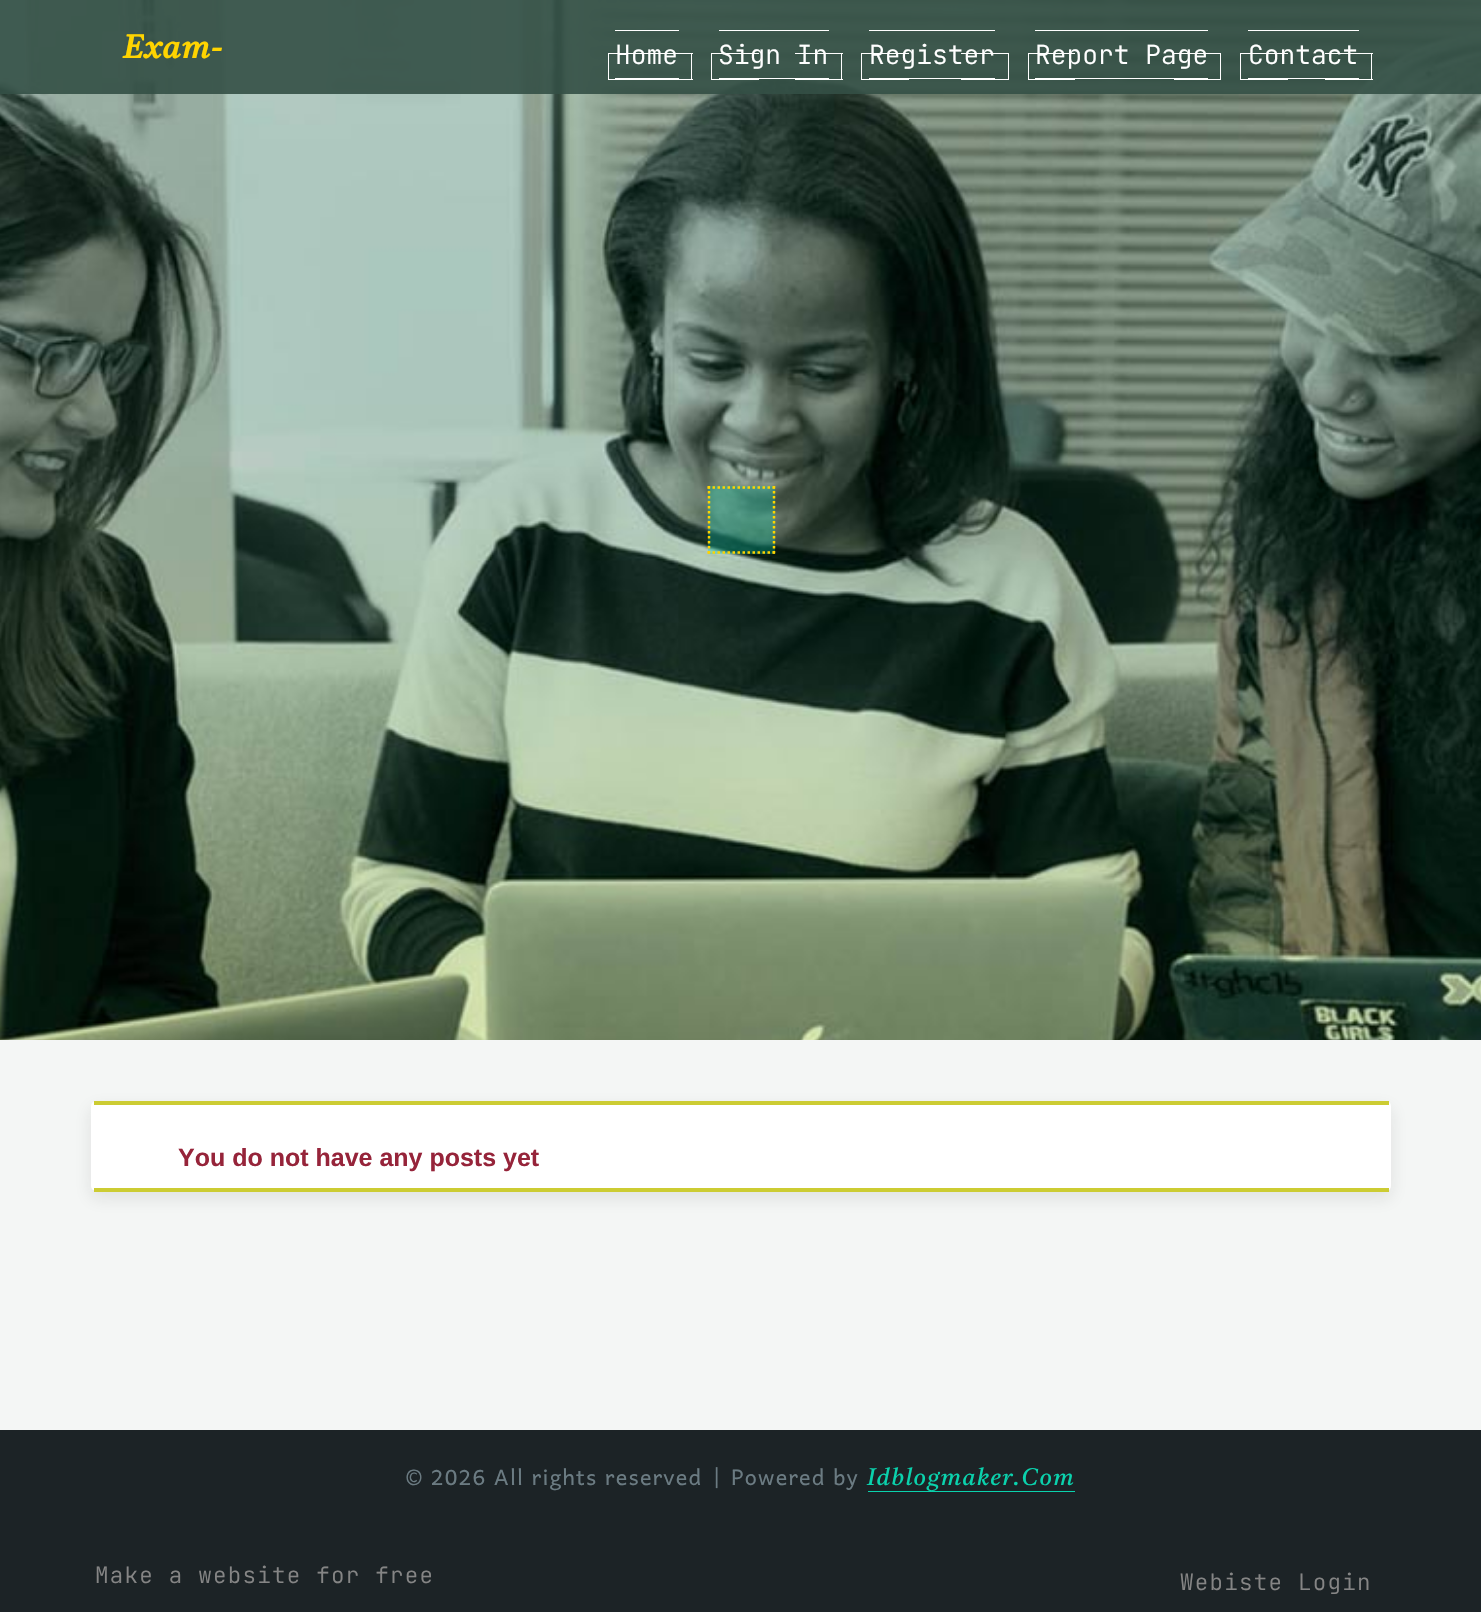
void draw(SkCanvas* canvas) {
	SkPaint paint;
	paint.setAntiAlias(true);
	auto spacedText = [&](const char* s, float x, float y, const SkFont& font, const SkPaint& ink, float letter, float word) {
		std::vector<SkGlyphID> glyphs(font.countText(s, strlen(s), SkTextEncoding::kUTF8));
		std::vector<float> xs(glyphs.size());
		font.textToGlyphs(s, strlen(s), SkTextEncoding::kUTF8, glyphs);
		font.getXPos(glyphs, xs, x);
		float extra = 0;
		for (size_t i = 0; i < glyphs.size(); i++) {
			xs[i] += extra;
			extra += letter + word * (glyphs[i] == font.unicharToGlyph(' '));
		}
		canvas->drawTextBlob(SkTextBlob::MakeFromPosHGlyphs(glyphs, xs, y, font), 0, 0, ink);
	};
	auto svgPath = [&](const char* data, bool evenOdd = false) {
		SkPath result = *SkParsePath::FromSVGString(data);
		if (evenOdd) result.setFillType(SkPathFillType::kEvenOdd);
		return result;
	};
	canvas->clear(0xfff4f6f5);
	canvas->drawImageRect(SkImages::DeferredFromEncodedData(SkData::MakeFromFileName("img1.png")), SkRect::MakeXYWH(0, 0, 1481, 1040), SkSamplingOptions());
	paint.setColor(0xe6334f45);
	canvas->drawRect(SkRect::MakeXYWH(0, 0, 1481, 94), paint);
	SkFont f1(fontMgr->matchFamilyStyle("Castoro", SkFontStyle::BoldItalic()), 32.5);
	f1.setSubpixel(true);
	paint.setColor(0xffffd400);
	spacedText("Exam-", 123, 58, f1, paint, 1.25, 0);
	paint.setColor(0xffffffff);
	canvas->drawRect(SkRect::MakeXYWH(608, 53, 85, 1), paint);
	SkFont f2(fontMgr->matchFamilyStyle("JetBrains Mono", SkFontStyle(300, SkFontStyle::kNormal_Width, SkFontStyle::kUpright_Slant)), 26.25);
	f2.setSubpixel(true);
	canvas->drawString("Home", 615, 64, f2, paint);
	canvas->drawRect(SkRect::MakeXYWH(608, 79, 37, 1), paint);
	canvas->drawRect(SkRect::MakeXYWH(608, 53, 1, 27), paint);
	canvas->drawRect(SkRect::MakeXYWH(615, 30, 64, 1), paint);
	canvas->drawRect(SkRect::MakeXYWH(615, 78, 64, 1), paint);
	canvas->drawRect(SkRect::MakeXYWH(691, 53, 1, 27), paint);
	canvas->drawRect(SkRect::MakeXYWH(645, 79, 48, 1), paint);
	canvas->drawRect(SkRect::MakeXYWH(711, 53, 48, 1), paint);
	canvas->drawRect(SkRect::MakeXYWH(795, 53, 48, 1), paint);
	canvas->drawString("Sign In", 718, 64, f2, paint);
	canvas->drawRect(SkRect::MakeXYWH(711, 79, 48, 1), paint);
	canvas->drawRect(SkRect::MakeXYWH(711, 53, 1, 27), paint);
	canvas->drawRect(SkRect::MakeXYWH(719, 30, 110, 1), paint);
	canvas->drawRect(SkRect::MakeXYWH(719, 78, 110, 1), paint);
	canvas->drawRect(SkRect::MakeXYWH(841, 53, 1, 27), paint);
	canvas->drawRect(SkRect::MakeXYWH(795, 79, 48, 1), paint);
	canvas->drawRect(SkRect::MakeXYWH(861, 53, 48, 1), paint);
	canvas->drawRect(SkRect::MakeXYWH(961, 53, 48, 1), paint);
	canvas->drawString("Register", 869, 64, f2, paint);
	canvas->drawRect(SkRect::MakeXYWH(861, 79, 48, 1), paint);
	canvas->drawRect(SkRect::MakeXYWH(861, 53, 1, 27), paint);
	canvas->drawRect(SkRect::MakeXYWH(869, 30, 126, 1), paint);
	canvas->drawRect(SkRect::MakeXYWH(869, 78, 126, 1), paint);
	canvas->drawRect(SkRect::MakeXYWH(1008, 53, 1, 27), paint);
	canvas->drawRect(SkRect::MakeXYWH(961, 79, 48, 1), paint);
	canvas->drawRect(SkRect::MakeXYWH(1028, 53, 47, 1), paint);
	canvas->drawRect(SkRect::MakeXYWH(1174, 53, 47, 1), paint);
	canvas->drawString("Report Page", 1035, 64, f2, paint);
	canvas->drawRect(SkRect::MakeXYWH(1028, 79, 47, 1), paint);
	canvas->drawRect(SkRect::MakeXYWH(1028, 53, 1, 27), paint);
	canvas->drawRect(SkRect::MakeXYWH(1035, 30, 173, 1), paint);
	canvas->drawRect(SkRect::MakeXYWH(1035, 78, 173, 1), paint);
	canvas->drawRect(SkRect::MakeXYWH(1220, 53, 1, 27), paint);
	canvas->drawRect(SkRect::MakeXYWH(1174, 79, 47, 1), paint);
	canvas->drawRect(SkRect::MakeXYWH(1240, 53, 48, 1), paint);
	canvas->drawRect(SkRect::MakeXYWH(1325, 53, 48, 1), paint);
	canvas->drawString("Contact", 1248, 64, f2, paint);
	canvas->drawRect(SkRect::MakeXYWH(1240, 79, 48, 1), paint);
	canvas->drawRect(SkRect::MakeXYWH(1240, 53, 1, 27), paint);
	canvas->drawRect(SkRect::MakeXYWH(1248, 30, 111, 1), paint);
	canvas->drawRect(SkRect::MakeXYWH(1248, 78, 111, 1), paint);
	canvas->drawRect(SkRect::MakeXYWH(1371, 53, 1, 27), paint);
	canvas->drawRect(SkRect::MakeXYWH(1325, 79, 48, 1), paint);
	paint.setColor(0x4d0ad2ad);
	canvas->drawRect(SkRect::MakeXYWH(708, 486, 67, 68), paint);
	paint.setStroke(true);
	paint.setStrokeWidth(2.5);
	paint.setColor(0xffffd400);
	paint.setPathEffect(SkDashPathEffect::Make({{2.5f, 2.5f}}, 0));
	canvas->drawPath(svgPath("M707.5 487.5H775"), paint);
	paint.setPathEffect(nullptr);
	paint.setPathEffect(SkDashPathEffect::Make({{2.5f, 2.5f}}, 0));
	canvas->drawPath(svgPath("M774 486V554"), paint);
	paint.setPathEffect(nullptr);
	paint.setPathEffect(SkDashPathEffect::Make({{2.5f, 2.5f}}, 0));
	canvas->drawPath(svgPath("M707.5 552.5H775"), paint);
	paint.setPathEffect(nullptr);
	paint.setPathEffect(SkDashPathEffect::Make({{2.5f, 2.5f}}, 0));
	canvas->drawPath(svgPath("M709 486V554"), paint);
	paint.setPathEffect(nullptr);
	paint.setStroke(false);
	paint.setColor(0x1a191919);
	paint.setMaskFilter(SkMaskFilter::MakeBlur(kNormal_SkBlurStyle, 9));
	canvas->drawRoundRect(SkRect::MakeXYWH(91, 1108, 1300, 90), 5, 5, paint);
	paint.setMaskFilter(nullptr);
	paint.setColor(0xffffffff);
	canvas->drawRoundRect(SkRect::MakeXYWH(91, 1101, 1300, 90), 5, 5, paint);
	paint.setColor(0xffcccc33);
	canvas->drawRect(SkRect::MakeXYWH(94, 1101, 1295, 4), paint);
	canvas->drawRect(SkRect::MakeXYWH(94, 1188, 1295, 4), paint);
	SkFont f3(fontMgr->matchFamilyStyle("Liberation Sans", SkFontStyle::Bold()), 25);
	f3.setSubpixel(true);
	paint.setColor(0xff96243a);
	canvas->drawString("You do not have any posts yet", 178, 1166, f3, paint);
	paint.setColor(0xff1c2326);
	canvas->drawRect(SkRect::MakeXYWH(0, 1430, 1481, 182), paint);
	SkFont f4(fontMgr->matchFamilyStyle("Harmattan", SkFontStyle::Normal()), 28.75);
	f4.setSubpixel(true);
	paint.setColor(0xff6b7b82);
	spacedText("© 2026 All rights reserved", 406, 1485, f4, paint, 1.25, 0);
	spacedText("|", 713, 1484, f4, paint, 1.25, 0);
	spacedText("Powered by", 731, 1485, f4, paint, 1.25, 0);
	paint.setColor(0xff0ad2ad);
	canvas->drawRect(SkRect::MakeXYWH(868, 1491, 207, 1), paint);
	SkFont f5(fontMgr->matchFamilyStyle("Castoro", SkFontStyle::Italic()), 23.75);
	f5.setSubpixel(true);
	spacedText("Idblogmaker.Com", 867, 1485, f5, paint, 1.25, 0);
	SkFont f6(fontMgr->matchFamilyStyle("JetBrains Mono", SkFontStyle(300, SkFontStyle::kNormal_Width, SkFontStyle::kUpright_Slant)), 22.5);
	f6.setSubpixel(true);
	paint.setColor(0xff858585);
	spacedText("Make a website for free", 95, 1583, f6, paint, 1.25, 0);
	spacedText("Webiste Login", 1180, 1590, f6, paint, 1.25, 0);
}
